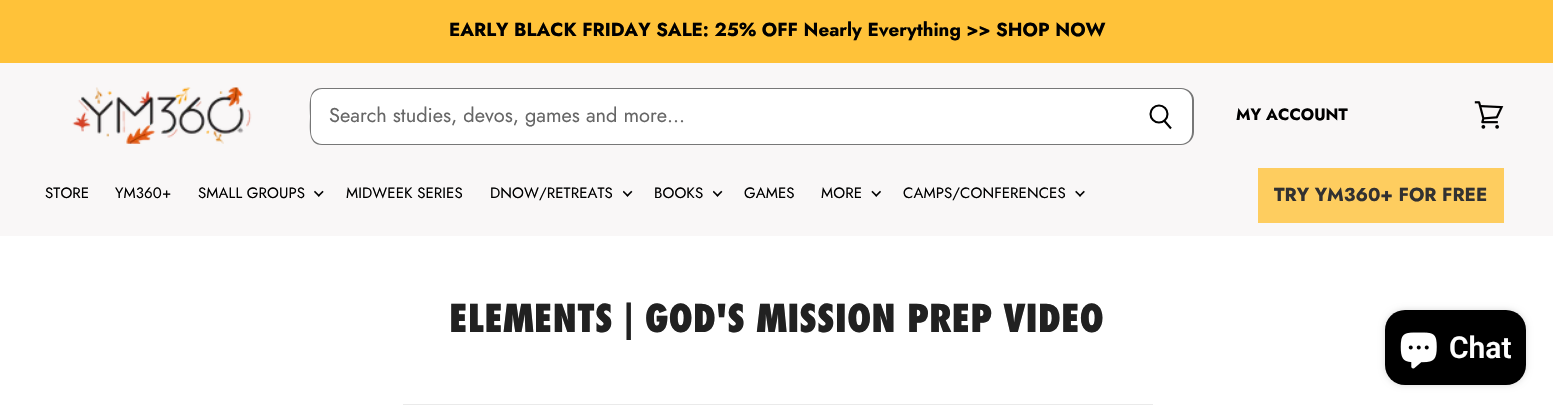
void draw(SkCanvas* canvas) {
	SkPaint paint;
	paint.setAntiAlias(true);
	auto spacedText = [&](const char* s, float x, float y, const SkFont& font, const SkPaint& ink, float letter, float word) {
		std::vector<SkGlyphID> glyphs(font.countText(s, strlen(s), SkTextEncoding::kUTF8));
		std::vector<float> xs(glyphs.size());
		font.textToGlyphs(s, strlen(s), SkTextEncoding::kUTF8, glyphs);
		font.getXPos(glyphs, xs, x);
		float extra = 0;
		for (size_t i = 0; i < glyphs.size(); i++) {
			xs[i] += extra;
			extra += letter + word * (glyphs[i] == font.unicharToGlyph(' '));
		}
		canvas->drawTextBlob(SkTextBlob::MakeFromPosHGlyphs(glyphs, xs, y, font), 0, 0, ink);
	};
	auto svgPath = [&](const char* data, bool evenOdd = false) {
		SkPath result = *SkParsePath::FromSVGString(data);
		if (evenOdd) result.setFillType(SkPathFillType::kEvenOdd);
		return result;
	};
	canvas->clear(0xffffffff);
	paint.setColor(0xffffc239);
	canvas->drawRect(SkRect::MakeXYWH(0, 0, 1553, 63), paint);
	SkFont f1(fontMgr->matchFamilyStyle("Jost", SkFontStyle::Bold()), 18.75);
	f1.setSubpixel(true);
	paint.setColor(0xff000000);
	canvas->drawString("EARLY BLACK FRIDAY SALE: 25% OFF Nearly Everything >> SHOP NOW", 449, 36, f1, paint);
	paint.setColor(0xfff9f7f7);
	canvas->drawRect(SkRect::MakeXYWH(0, 63, 1553, 173), paint);
	canvas->drawImageRect(SkImages::DeferredFromEncodedData(SkData::MakeFromFileName("img1.png")), SkRect::MakeXYWH(72, 87, 180, 57), SkSamplingOptions());
	paint.setColor(0xffffffff);
	canvas->drawPath(svgPath("M322 89H1128V144H322C316 144 311 139 311 133V100C311 94 316 89 322 89Z"), paint);
	paint.setColor(0xff777777);
	canvas->drawPath(svgPath("M322 88H1128V145H322C307 145 310 126 310 116C310 106 307 88 322 88ZM322 89H1128V144H322C316 144 311 139 311 132V100C311 94 316 89 322 89Z", true), paint);
	SkFont f2(fontMgr->matchFamilyStyle("Jost", SkFontStyle::Normal()), 20);
	f2.setSubpixel(true);
	paint.setColor(0xff666666);
	canvas->drawString("Search studies, devos, games and more...", 329, 122, f2, paint);
	paint.setColor(0xffffffff);
	canvas->drawPath(svgPath("M1128 89H1182C1188 89 1193 94 1193 100V133C1193 139 1188 144 1182 144H1128Z"), paint);
	paint.setColor(0xff777777);
	canvas->drawPath(svgPath("M1128 88H1181C1188 88 1194 93 1194 100V132C1194 139 1188 145 1181 145H1128ZM1128 89H1181C1187 89 1192 94 1192 100V132C1192 139 1187 144 1181 144H1128Z", true), paint);
	paint.setStroke(true);
	paint.setStrokeWidth(2.1);
	paint.setColor(0xff000000);
	canvas->drawPath(svgPath("M1171 128.5L1164 120.5"), paint);
	canvas->drawCircle(1159, 114, 8.5, paint);
	SkFont f3(fontMgr->matchFamilyStyle("Jost", SkFontStyle::Bold()), 16.25);
	f3.setSubpixel(true);
	paint.setStroke(false);
	canvas->drawString("MY ACCOUNT", 1236, 120, f3, paint);
	canvas->drawImageRect(SkImages::DeferredFromEncodedData(SkData::MakeFromFileName("img2.png")), SkRect::MakeXYWH(1474, 101, 30, 28), SkSamplingOptions());
	SkFont f4(fontMgr->matchFamilyStyle("Jost", SkFontStyle::Normal()), 15);
	f4.setSubpixel(true);
	spacedText("STORE", 45, 198, f4, paint, 0.1, 0);
	spacedText("YM360+", 115, 198, f4, paint, 0.1, 0);
	spacedText("SMALL GROUPS", 198, 198, f4, paint, 0.1, 0);
	canvas->drawImageRect(SkImages::DeferredFromEncodedData(SkData::MakeFromFileName("img3.png")), SkRect::MakeXYWH(314, 190, 10, 7), SkSamplingOptions());
	spacedText("MIDWEEK SERIES", 346, 198, f4, paint, 0.1, 0);
	spacedText("DNOW/RETREATS", 490, 198, f4, paint, 0.1, 0);
	canvas->drawImageRect(SkImages::DeferredFromEncodedData(SkData::MakeFromFileName("img4.png")), SkRect::MakeXYWH(623, 190, 10, 7), SkSamplingOptions());
	spacedText("BOOKS", 654, 198, f4, paint, 0.1, 0);
	canvas->drawImageRect(SkImages::DeferredFromEncodedData(SkData::MakeFromFileName("img4.png")), SkRect::MakeXYWH(713, 190, 10, 7), SkSamplingOptions());
	spacedText("GAMES", 744, 198, f4, paint, 0.1, 0);
	spacedText("MORE", 821, 198, f4, paint, 0.1, 0);
	canvas->drawImageRect(SkImages::DeferredFromEncodedData(SkData::MakeFromFileName("img5.png")), SkRect::MakeXYWH(871, 190, 10, 7), SkSamplingOptions());
	spacedText("CAMPS/CONFERENCES", 903, 198, f4, paint, 0.1, 0);
	canvas->drawImageRect(SkImages::DeferredFromEncodedData(SkData::MakeFromFileName("img6.png")), SkRect::MakeXYWH(1075, 190, 10, 7), SkSamplingOptions());
	paint.setColor(0xfffecd5f);
	canvas->drawRect(SkRect::MakeXYWH(1258, 168, 246, 55), paint);
	paint.setColor(0xff323131);
	canvas->drawString("TRY YM360+ FOR FREE", 1274, 201, f1, paint);
	SkFont f5(fontMgr->matchFamilyStyle("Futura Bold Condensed", SkFontStyle::Bold()), 37.5);
	f5.setSubpixel(true);
	paint.setColor(0xff212121);
	canvas->drawString("ELEMENTS | GOD'S MISSION PREP VIDEO", 449, 332, f5, paint);
	paint.setColor(0xffeaeaea);
	canvas->drawRect(SkRect::MakeXYWH(403, 404, 750, 1), paint);
	paint.setColor(0x26000000);
	paint.setMaskFilter(SkMaskFilter::MakeBlur(kNormal_SkBlurStyle, 3));
	canvas->drawRoundRect(SkRect::MakeXYWH(1385, 310, 141, 75), 20, 20, paint);
	paint.setMaskFilter(nullptr);
	paint.setColor(0xff000000);
	canvas->drawRoundRect(SkRect::MakeXYWH(1385, 310, 141, 75), 20, 20, paint);
	canvas->drawImageRect(SkImages::DeferredFromEncodedData(SkData::MakeFromFileName("img7.png")), SkRect::MakeXYWH(1400, 332, 37, 37), SkSamplingOptions());
	SkFont f6(fontMgr->matchFamilyStyle("Roboto", SkFontStyle(600, SkFontStyle::kNormal_Width, SkFontStyle::kUpright_Slant)), 30);
	f6.setSubpixel(true);
	paint.setColor(0xffffffff);
	canvas->drawString("Chat", 1449, 358, f6, paint);
}
